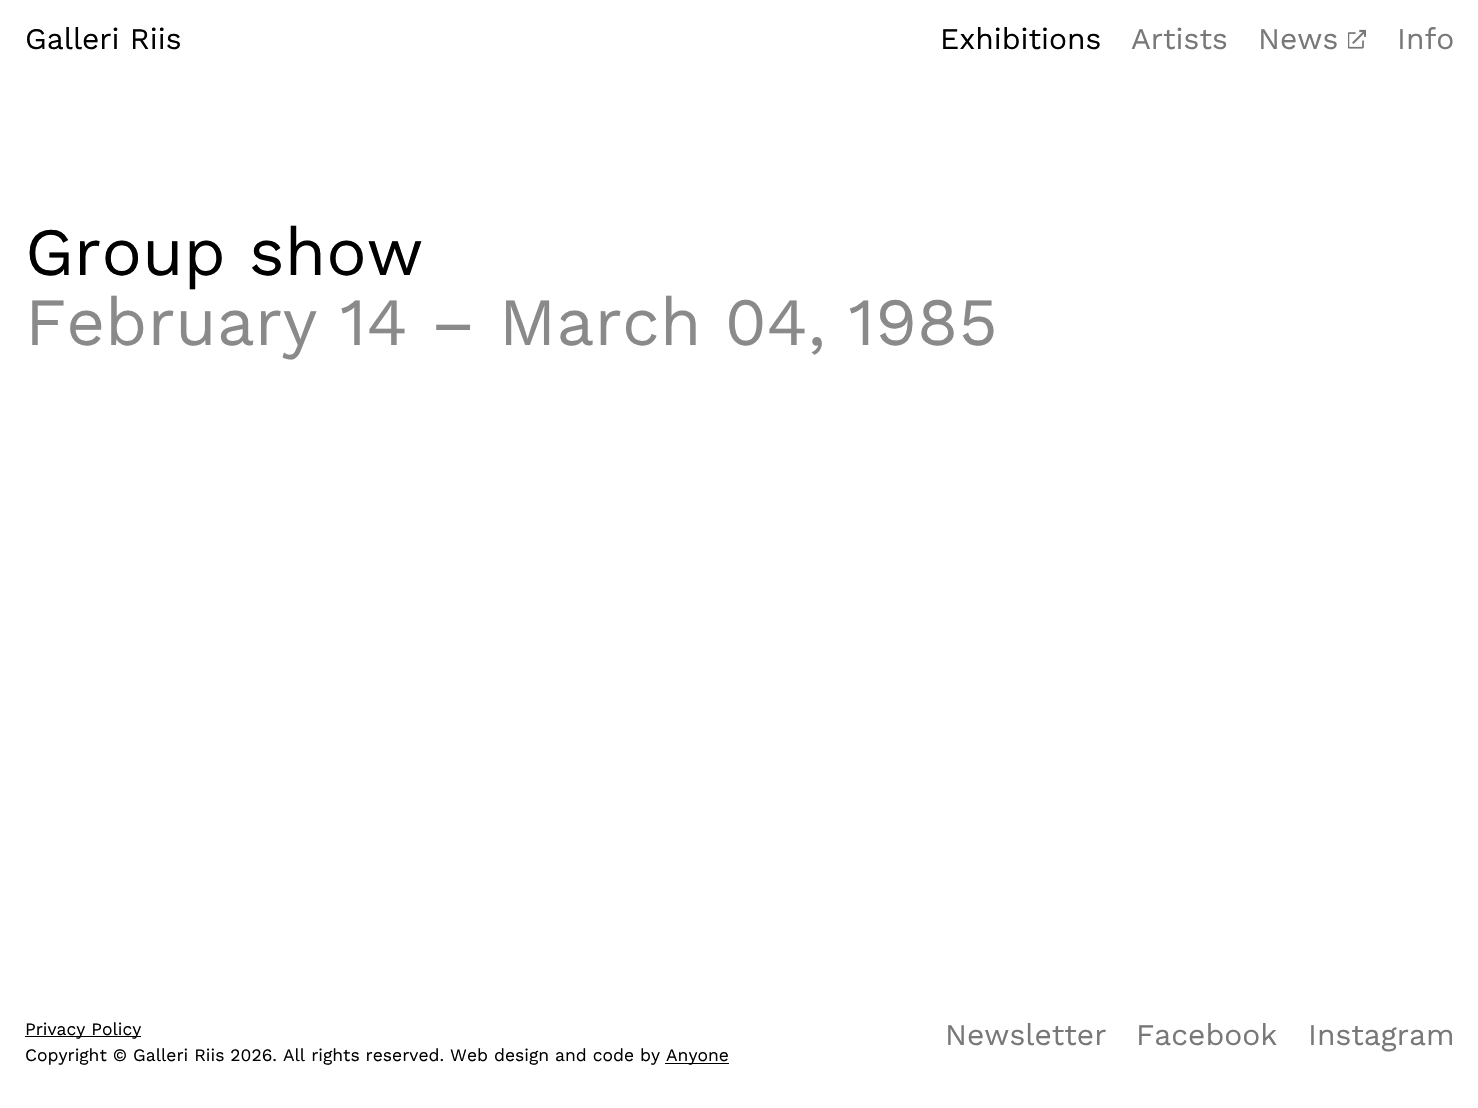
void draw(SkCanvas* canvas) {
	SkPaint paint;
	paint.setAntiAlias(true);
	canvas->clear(0xffffffff);
	SkFont f1(fontMgr->matchFamilyStyle("Work Sans", SkFontStyle::Normal()), 30);
	f1.setSubpixel(true);
	paint.setColor(0xff000000);
	canvas->drawString("Galleri Riis", 25, 49, f1, paint);
	canvas->drawString("Exhibitions", 940, 49, f1, paint);
	paint.setColor(0xff787878);
	canvas->drawString("Artists", 1131, 49, f1, paint);
	canvas->drawString("News", 1258, 49, f1, paint);
	canvas->drawImageRect(SkImages::DeferredFromEncodedData(SkData::MakeFromFileName("img1.png")), SkRect::MakeXYWH(1348, 29, 18, 20), SkSamplingOptions());
	canvas->drawString("Info", 1397, 49, f1, paint);
	SkFont f2(fontMgr->matchFamilyStyle("Work Sans", SkFontStyle::Normal()), 67.5);
	f2.setSubpixel(true);
	paint.setColor(0xff000000);
	canvas->drawString("Group show", 25, 275, f2, paint);
	paint.setColor(0xff8a8a8a);
	canvas->drawString("February 14 – March 04, 1985", 25, 345, f2, paint);
	paint.setColor(0xff000000);
	canvas->drawRect(SkRect::MakeXYWH(25, 1036, 116, 1), paint);
	SkFont f3(fontMgr->matchFamilyStyle("Work Sans", SkFontStyle::Normal()), 17.5);
	f3.setSubpixel(true);
	canvas->drawString("Privacy Policy", 25, 1035, f3, paint);
	canvas->drawString("Copyright © Galleri Riis 2026. All rights reserved. Web design and code by", 25, 1061, f3, paint);
	canvas->drawRect(SkRect::MakeXYWH(665, 1063, 64, 1), paint);
	canvas->drawString("Anyone", 666, 1061, f3, paint);
	paint.setColor(0xff787878);
	canvas->drawString("Newsletter", 945, 1045, f1, paint);
	canvas->drawString("Facebook", 1136, 1045, f1, paint);
	canvas->drawString("Instagram", 1308, 1045, f1, paint);
}
